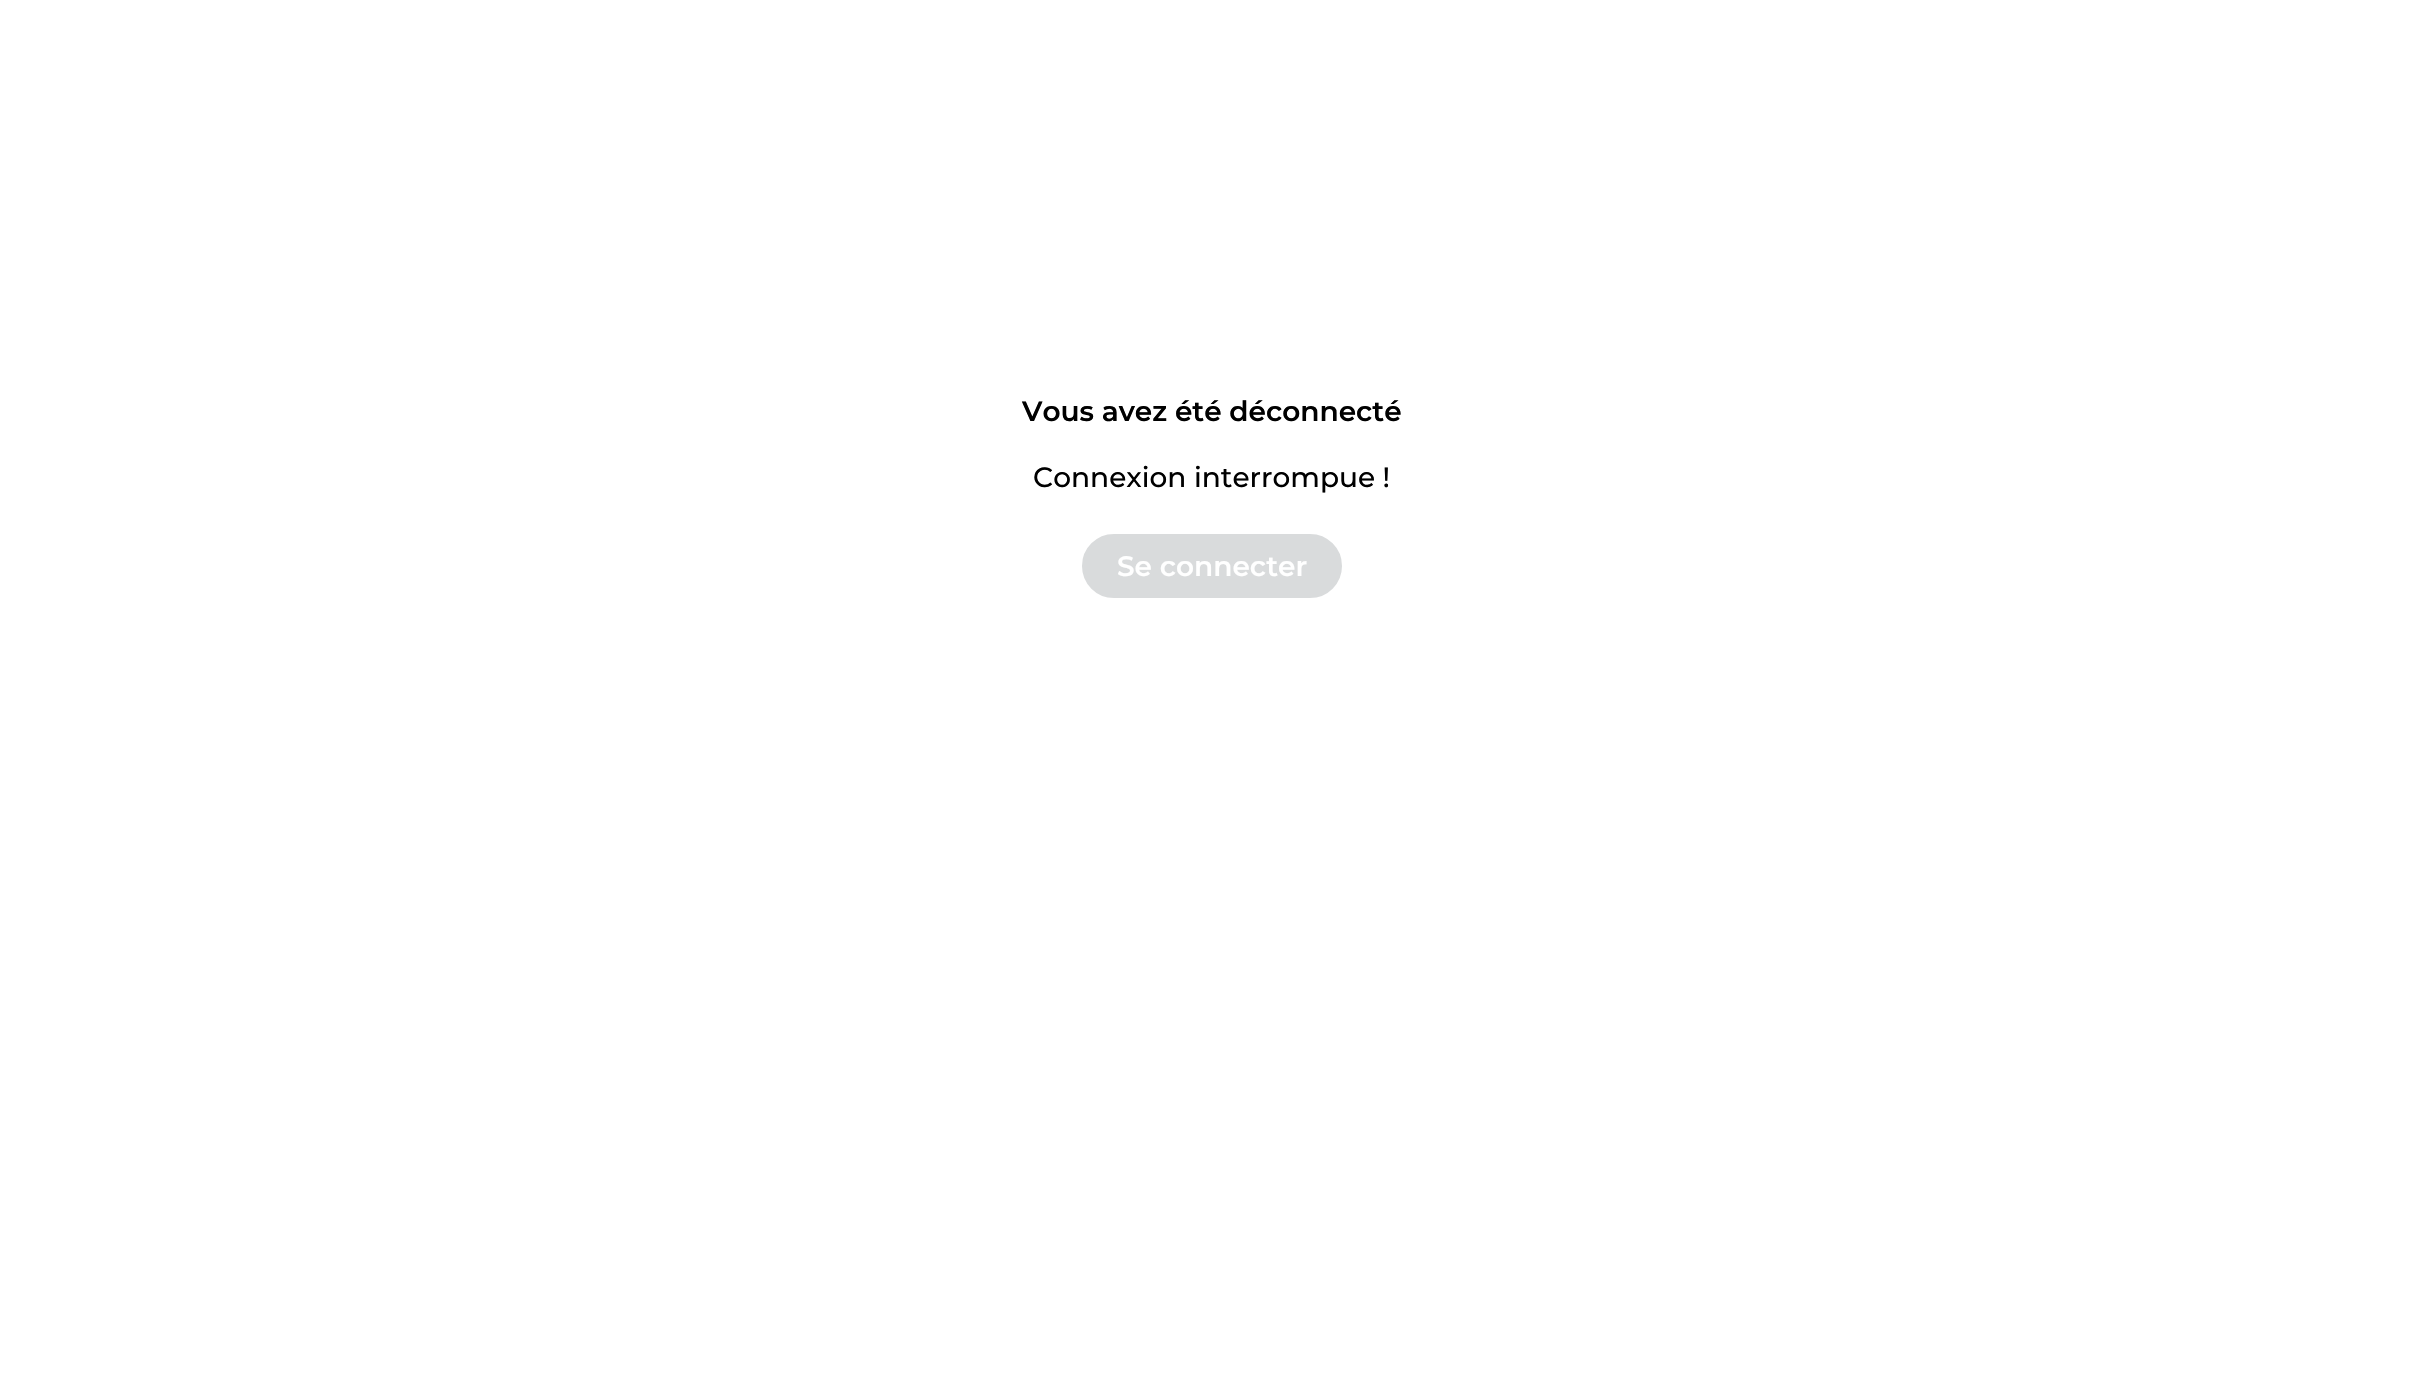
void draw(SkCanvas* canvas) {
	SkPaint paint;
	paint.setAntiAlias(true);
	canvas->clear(0xffffffff);
	SkFont f1(fontMgr->matchFamilyStyle("Montserrat", SkFontStyle(600, SkFontStyle::kNormal_Width, SkFontStyle::kUpright_Slant)), 28);
	f1.setSubpixel(true);
	paint.setColor(0xff000000);
	canvas->drawString("Vous avez été déconnecté", 1022, 421, f1, paint);
	SkFont f2(fontMgr->matchFamilyStyle("Montserrat", SkFontStyle(500, SkFontStyle::kNormal_Width, SkFontStyle::kUpright_Slant)), 28);
	f2.setSubpixel(true);
	canvas->drawString("Connexion interrompue !", 1033, 487, f2, paint);
	paint.setColor(0xffd9dbdc);
	canvas->drawRoundRect(SkRect::MakeXYWH(1083, 535, 258, 62), 31, 31, paint);
	paint.setStroke(true);
	paint.setStrokeWidth(2);
	canvas->drawRoundRect(SkRect::MakeXYWH(1083, 535, 258, 62), 31, 31, paint);
	paint.setStroke(false);
	paint.setColor(0xffffffff);
	canvas->drawString("Se connecter", 1117, 576, f1, paint);
}
